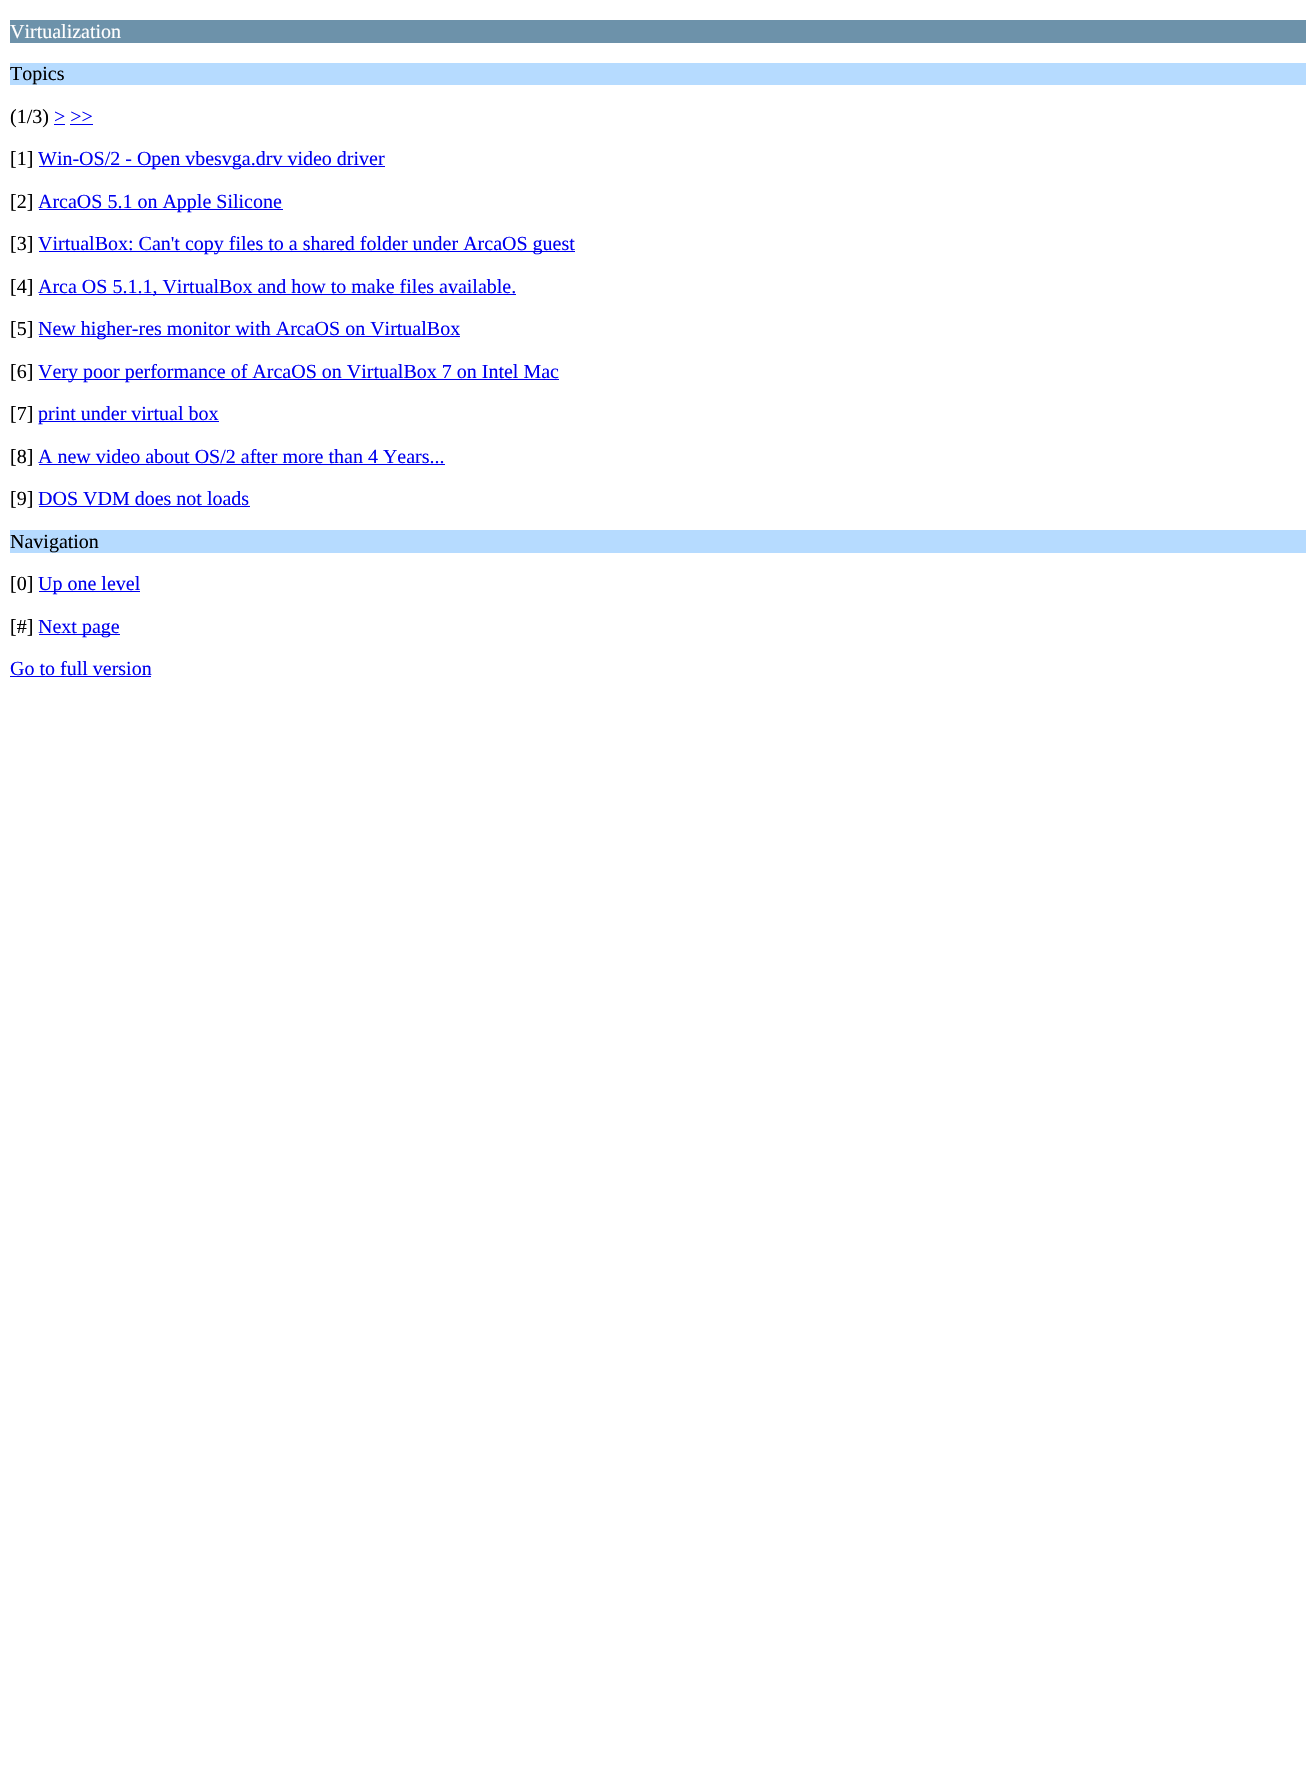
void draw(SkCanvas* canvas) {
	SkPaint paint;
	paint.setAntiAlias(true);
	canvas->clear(0xffffffff);
	paint.setColor(0xff6d92aa);
	canvas->drawRect(SkRect::MakeXYWH(10, 20, 1296, 23), paint);
	SkFont f1(fontMgr->matchFamilyStyle("Liberation Serif", SkFontStyle::Normal()), 20);
	f1.setSubpixel(true);
	paint.setColor(0xffffffff);
	canvas->drawString("Virtualization", 10, 38, f1, paint);
	paint.setColor(0xffb6dbff);
	canvas->drawRect(SkRect::MakeXYWH(10, 63, 1296, 22), paint);
	paint.setColor(0xff000000);
	canvas->drawString("Topics", 10, 80, f1, paint);
	canvas->drawString("(1/3)", 10, 123, f1, paint);
	paint.setColor(0xff0000ee);
	canvas->drawString("> >>", 54, 123, f1, paint);
	canvas->drawRect(SkRect::MakeXYWH(54, 124, 11, 1), paint);
	canvas->drawRect(SkRect::MakeXYWH(70, 124, 23, 1), paint);
	paint.setColor(0xff000000);
	canvas->drawString("[1]", 10, 165, f1, paint);
	paint.setColor(0xff0000ee);
	canvas->drawRect(SkRect::MakeXYWH(39, 166, 346, 1), paint);
	canvas->drawString("Win-OS/2 - Open vbesvga.drv video driver", 38, 165, f1, paint);
	paint.setColor(0xff000000);
	canvas->drawString("[2]", 10, 208, f1, paint);
	paint.setColor(0xff0000ee);
	canvas->drawRect(SkRect::MakeXYWH(39, 209, 244, 1), paint);
	canvas->drawString("ArcaOS 5.1 on Apple Silicone", 38, 208, f1, paint);
	paint.setColor(0xff000000);
	canvas->drawString("[3]", 10, 250, f1, paint);
	paint.setColor(0xff0000ee);
	canvas->drawRect(SkRect::MakeXYWH(39, 251, 536, 1), paint);
	canvas->drawString("VirtualBox: Can't copy files to a shared folder under ArcaOS guest", 38, 250, f1, paint);
	paint.setColor(0xff000000);
	canvas->drawString("[4]", 10, 293, f1, paint);
	paint.setColor(0xff0000ee);
	canvas->drawRect(SkRect::MakeXYWH(39, 294, 477, 1), paint);
	canvas->drawString("Arca OS 5.1.1, VirtualBox and how to make files available.", 38, 293, f1, paint);
	paint.setColor(0xff000000);
	canvas->drawString("[5]", 10, 335, f1, paint);
	paint.setColor(0xff0000ee);
	canvas->drawRect(SkRect::MakeXYWH(39, 336, 421, 1), paint);
	canvas->drawString("New higher-res monitor with ArcaOS on VirtualBox", 38, 335, f1, paint);
	paint.setColor(0xff000000);
	canvas->drawString("[6]", 10, 378, f1, paint);
	paint.setColor(0xff0000ee);
	canvas->drawRect(SkRect::MakeXYWH(39, 379, 520, 1), paint);
	canvas->drawString("Very poor performance of ArcaOS on VirtualBox 7 on Intel Mac", 38, 378, f1, paint);
	paint.setColor(0xff000000);
	canvas->drawString("[7]", 10, 420, f1, paint);
	paint.setColor(0xff0000ee);
	canvas->drawRect(SkRect::MakeXYWH(39, 421, 180, 1), paint);
	canvas->drawString("print under virtual box", 38, 420, f1, paint);
	paint.setColor(0xff000000);
	canvas->drawString("[8]", 10, 463, f1, paint);
	paint.setColor(0xff0000ee);
	canvas->drawString("A new video about OS/2 after more than 4 Years...", 38, 463, f1, paint);
	canvas->drawRect(SkRect::MakeXYWH(39, 464, 406, 1), paint);
	paint.setColor(0xff000000);
	canvas->drawString("[9]", 10, 505, f1, paint);
	paint.setColor(0xff0000ee);
	canvas->drawString("DOS VDM does not loads", 38, 505, f1, paint);
	canvas->drawRect(SkRect::MakeXYWH(39, 506, 211, 1), paint);
	paint.setColor(0xffb6dbff);
	canvas->drawRect(SkRect::MakeXYWH(10, 530, 1296, 23), paint);
	paint.setColor(0xff000000);
	canvas->drawString("Navigation", 10, 548, f1, paint);
	canvas->drawString("[0]", 10, 590, f1, paint);
	paint.setColor(0xff0000ee);
	canvas->drawRect(SkRect::MakeXYWH(39, 591, 101, 1), paint);
	canvas->drawString("Up one level", 38, 590, f1, paint);
	paint.setColor(0xff000000);
	canvas->drawString("[#]", 10, 633, f1, paint);
	paint.setColor(0xff0000ee);
	canvas->drawRect(SkRect::MakeXYWH(39, 634, 81, 1), paint);
	canvas->drawString("Next page", 38, 633, f1, paint);
	canvas->drawString("Go to full version", 10, 675, f1, paint);
	canvas->drawRect(SkRect::MakeXYWH(10, 676, 141, 1), paint);
}
